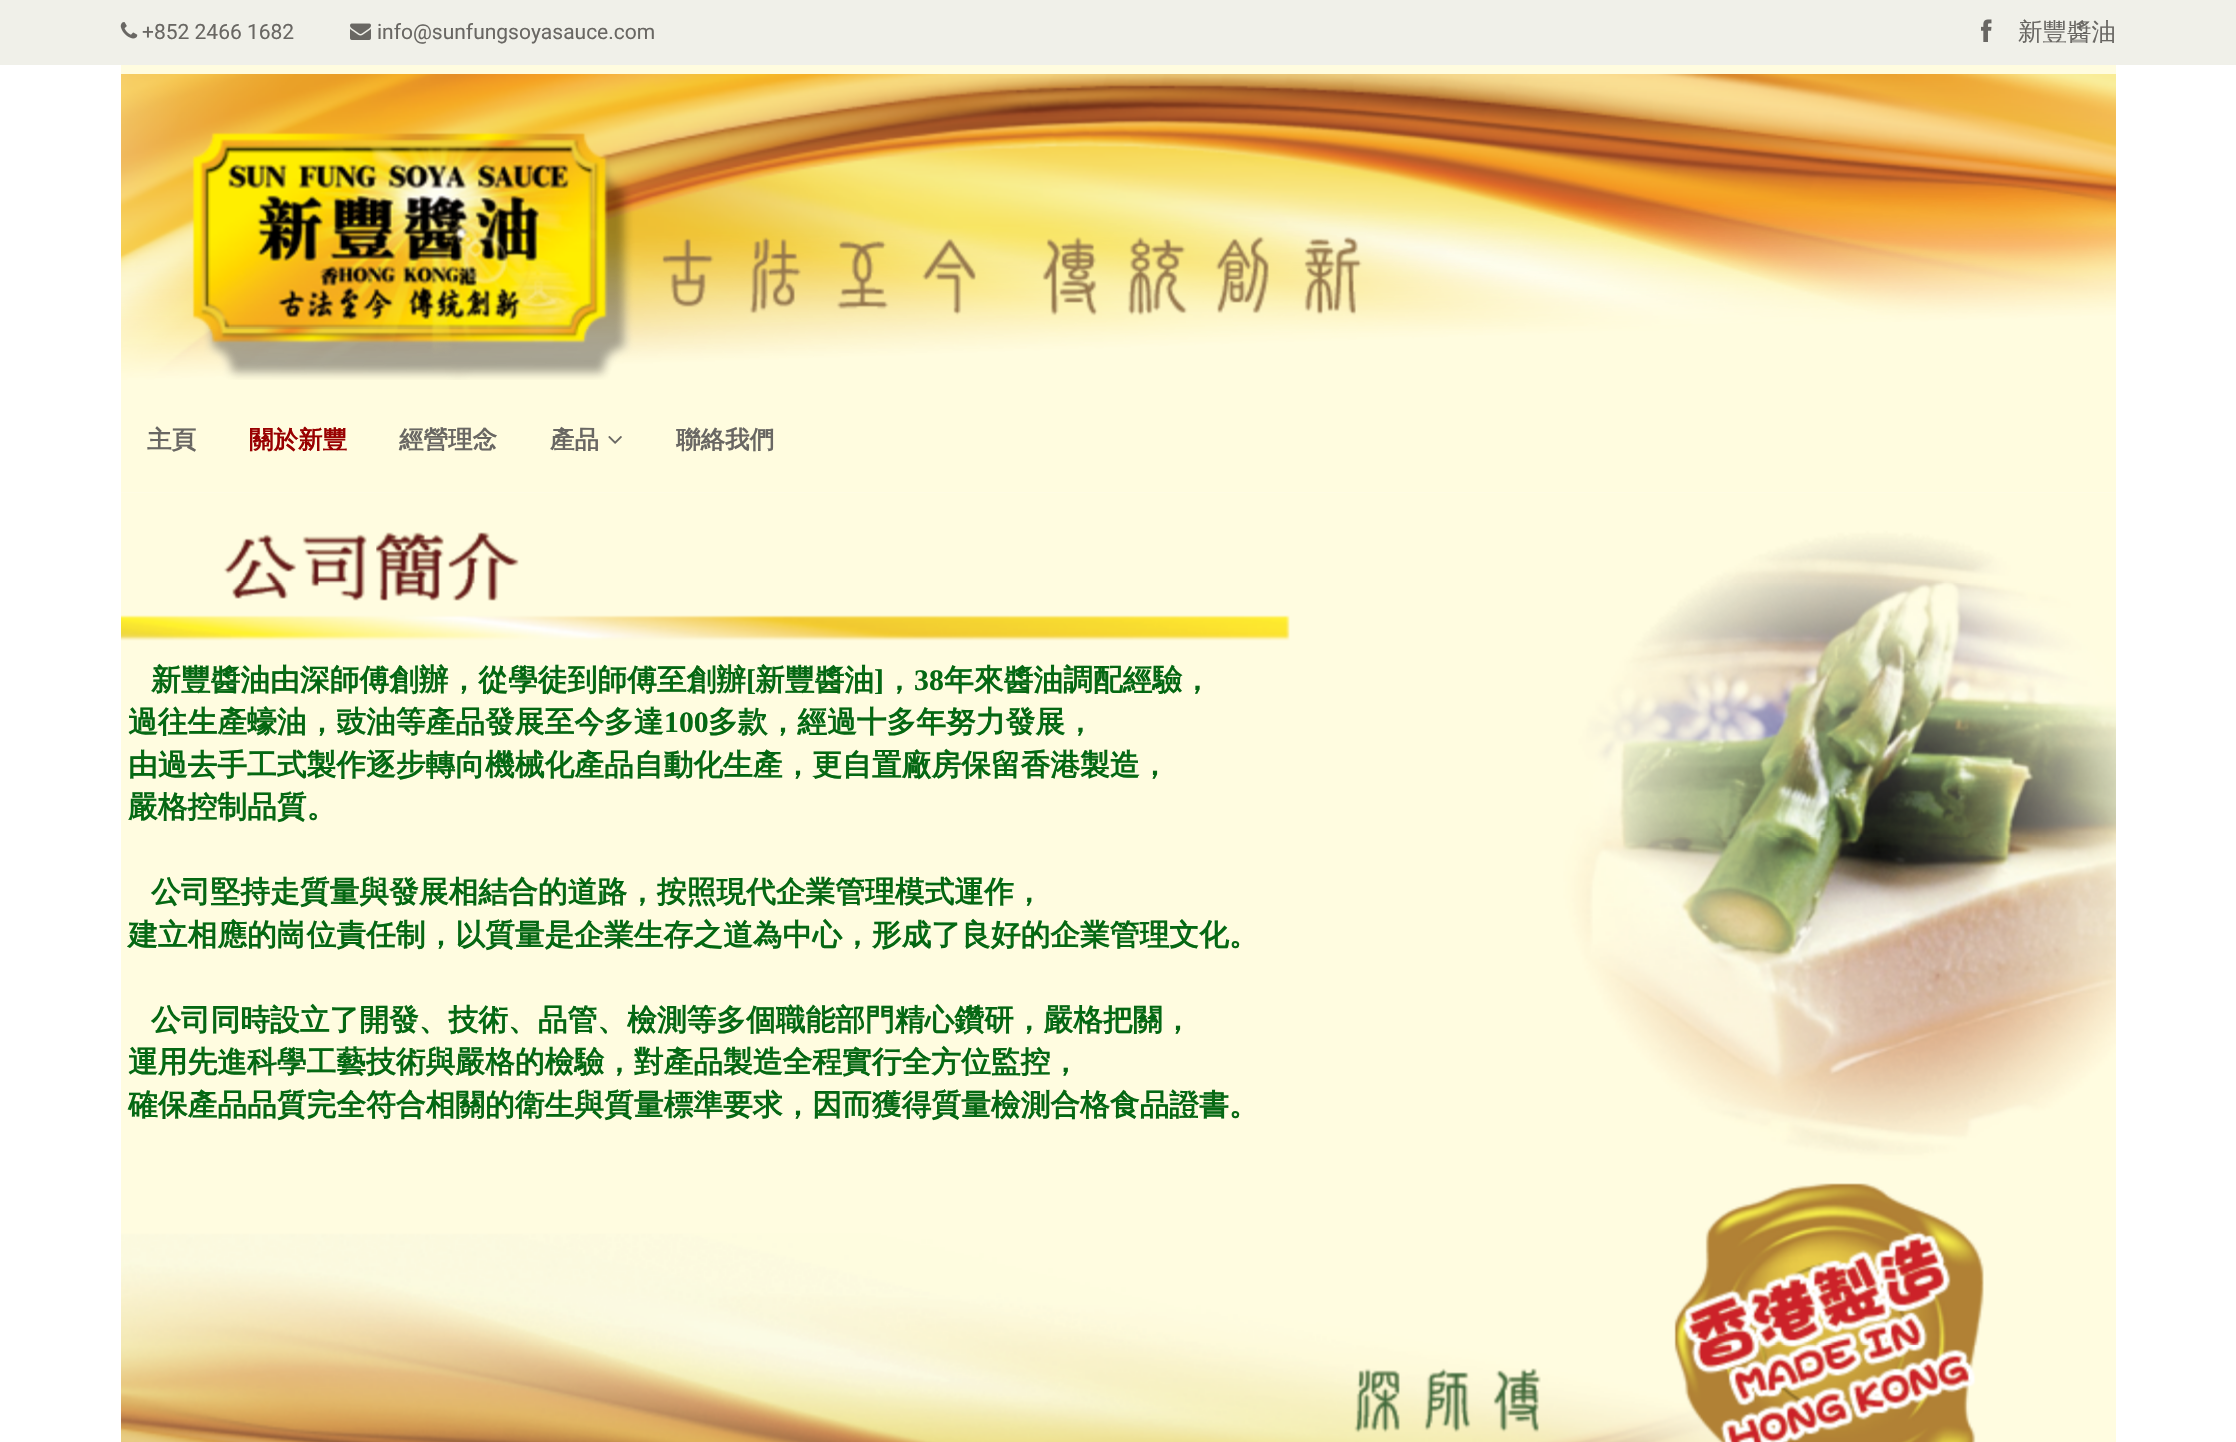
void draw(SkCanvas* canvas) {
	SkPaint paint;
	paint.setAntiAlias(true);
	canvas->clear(0xffffffff);
	paint.setColor(0xfff0f0e9);
	canvas->drawRect(SkRect::MakeXYWH(0, 0, 2236, 65), paint);
	canvas->drawImageRect(SkImages::DeferredFromEncodedData(SkData::MakeFromFileName("img1.png")), SkRect::MakeXYWH(120, 22, 18, 17), SkSamplingOptions());
	SkFont f1(fontMgr->matchFamilyStyle("Roboto", SkFontStyle::Normal()), 21);
	f1.setSubpixel(true);
	paint.setColor(0xff696763);
	canvas->drawString("+852 2466 1682", 142, 39, f1, paint);
	canvas->drawImageRect(SkImages::DeferredFromEncodedData(SkData::MakeFromFileName("img2.png")), SkRect::MakeXYWH(350, 23, 21, 17), SkSamplingOptions());
	canvas->drawString("info@sunfungsoyasauce.com", 377, 39, f1, paint);
	canvas->drawImageRect(SkImages::DeferredFromEncodedData(SkData::MakeFromFileName("img3.png")), SkRect::MakeXYWH(1981, 19, 11, 23), SkSamplingOptions());
	SkFont f2(fontMgr->matchFamilyStyle("WenQuanYi Zen Hei", SkFontStyle(500, SkFontStyle::kNormal_Width, SkFontStyle::kUpright_Slant)), 24.5);
	f2.setSubpixel(true);
	canvas->drawString("新豐醬油", 2018, 40, f2, paint);
	paint.setColor(0xfffffcdf);
	canvas->drawRect(SkRect::MakeXYWH(121, 65, 1995, 427), paint);
	canvas->drawImageRect(SkImages::DeferredFromEncodedData(SkData::MakeFromFileName("img4.png")), SkRect::MakeXYWH(121, 74, 1995, 306), SkSamplingOptions());
	SkFont f3(fontMgr->matchFamilyStyle("WenQuanYi Zen Hei", SkFontStyle::Bold()), 24.5);
	f3.setSubpixel(true);
	paint.setColor(0xff696763);
	canvas->drawString("主頁", 147, 448, f3, paint);
	paint.setColor(0xff990000);
	canvas->drawString("關於新豐", 249, 448, f3, paint);
	paint.setColor(0xff696763);
	canvas->drawString("經營理念", 399, 448, f3, paint);
	canvas->drawString("產品", 550, 448, f3, paint);
	canvas->drawImageRect(SkImages::DeferredFromEncodedData(SkData::MakeFromFileName("img5.png")), SkRect::MakeXYWH(608, 436, 14, 8), SkSamplingOptions());
	canvas->drawString("聯絡我們", 676, 448, f3, paint);
	canvas->drawImageRect(SkImages::DeferredFromEncodedData(SkData::MakeFromFileName("img6.png")), SkRect::MakeXYWH(121, 492, 1995, 950), SkSamplingOptions());
	SkFont f4(fontMgr->matchFamilyStyle("WenQuanYi Zen Hei", SkFontStyle::Bold()), 29.75);
	f4.setSubpixel(true);
	paint.setColor(0xff056813);
	canvas->drawString("新豐醬油由深師傅創辦，從學徒到師傅至創辦", 151, 690, f4, paint);
	SkFont f5(fontMgr->matchFamilyStyle("Liberation Serif", SkFontStyle::Bold()), 29.75);
	f5.setSubpixel(true);
	canvas->drawString("[", 746, 690, f5, paint);
	canvas->drawString("新豐醬油", 755, 690, f4, paint);
	canvas->drawString("]", 874, 690, f5, paint);
	canvas->drawString("，", 884, 690, f4, paint);
	canvas->drawString("38", 914, 690, f5, paint);
	canvas->drawString("年來醬油調配經驗，", 944, 690, f4, paint);
	canvas->drawString("過往生產蠔油，豉油等產品發展至今多達", 128, 732, f4, paint);
	canvas->drawString("100", 664, 732, f5, paint);
	canvas->drawString("多款，經過十多年努力發展，", 708, 732, f4, paint);
	canvas->drawString("由過去手工式製作逐步轉向機械化產品自動化生產，更自置廠房保留香港製造，", 128, 775, f4, paint);
	canvas->drawString("嚴格控制品質。", 128, 817, f4, paint);
	canvas->drawString("公司堅持走質量與發展相結合的道路，按照現代企業管理模式運作，", 151, 902, f4, paint);
	canvas->drawString("建立相應的崗位責任制，以質量是企業生存之道為中心，形成了良好的企業管理文化。", 128, 945, f4, paint);
	canvas->drawString("公司同時設立了開發、技術、品管、檢測等多個職能部門精心鑽研，嚴格把關，", 151, 1030, f4, paint);
	canvas->drawString("運用先進科學工藝技術與嚴格的檢驗，對產品製造全程實行全方位監控，", 128, 1072, f4, paint);
	canvas->drawString("確保產品品質完全符合相關的衛生與質量標準要求，因而獲得質量檢測合格食品證書。", 128, 1115, f4, paint);
}
